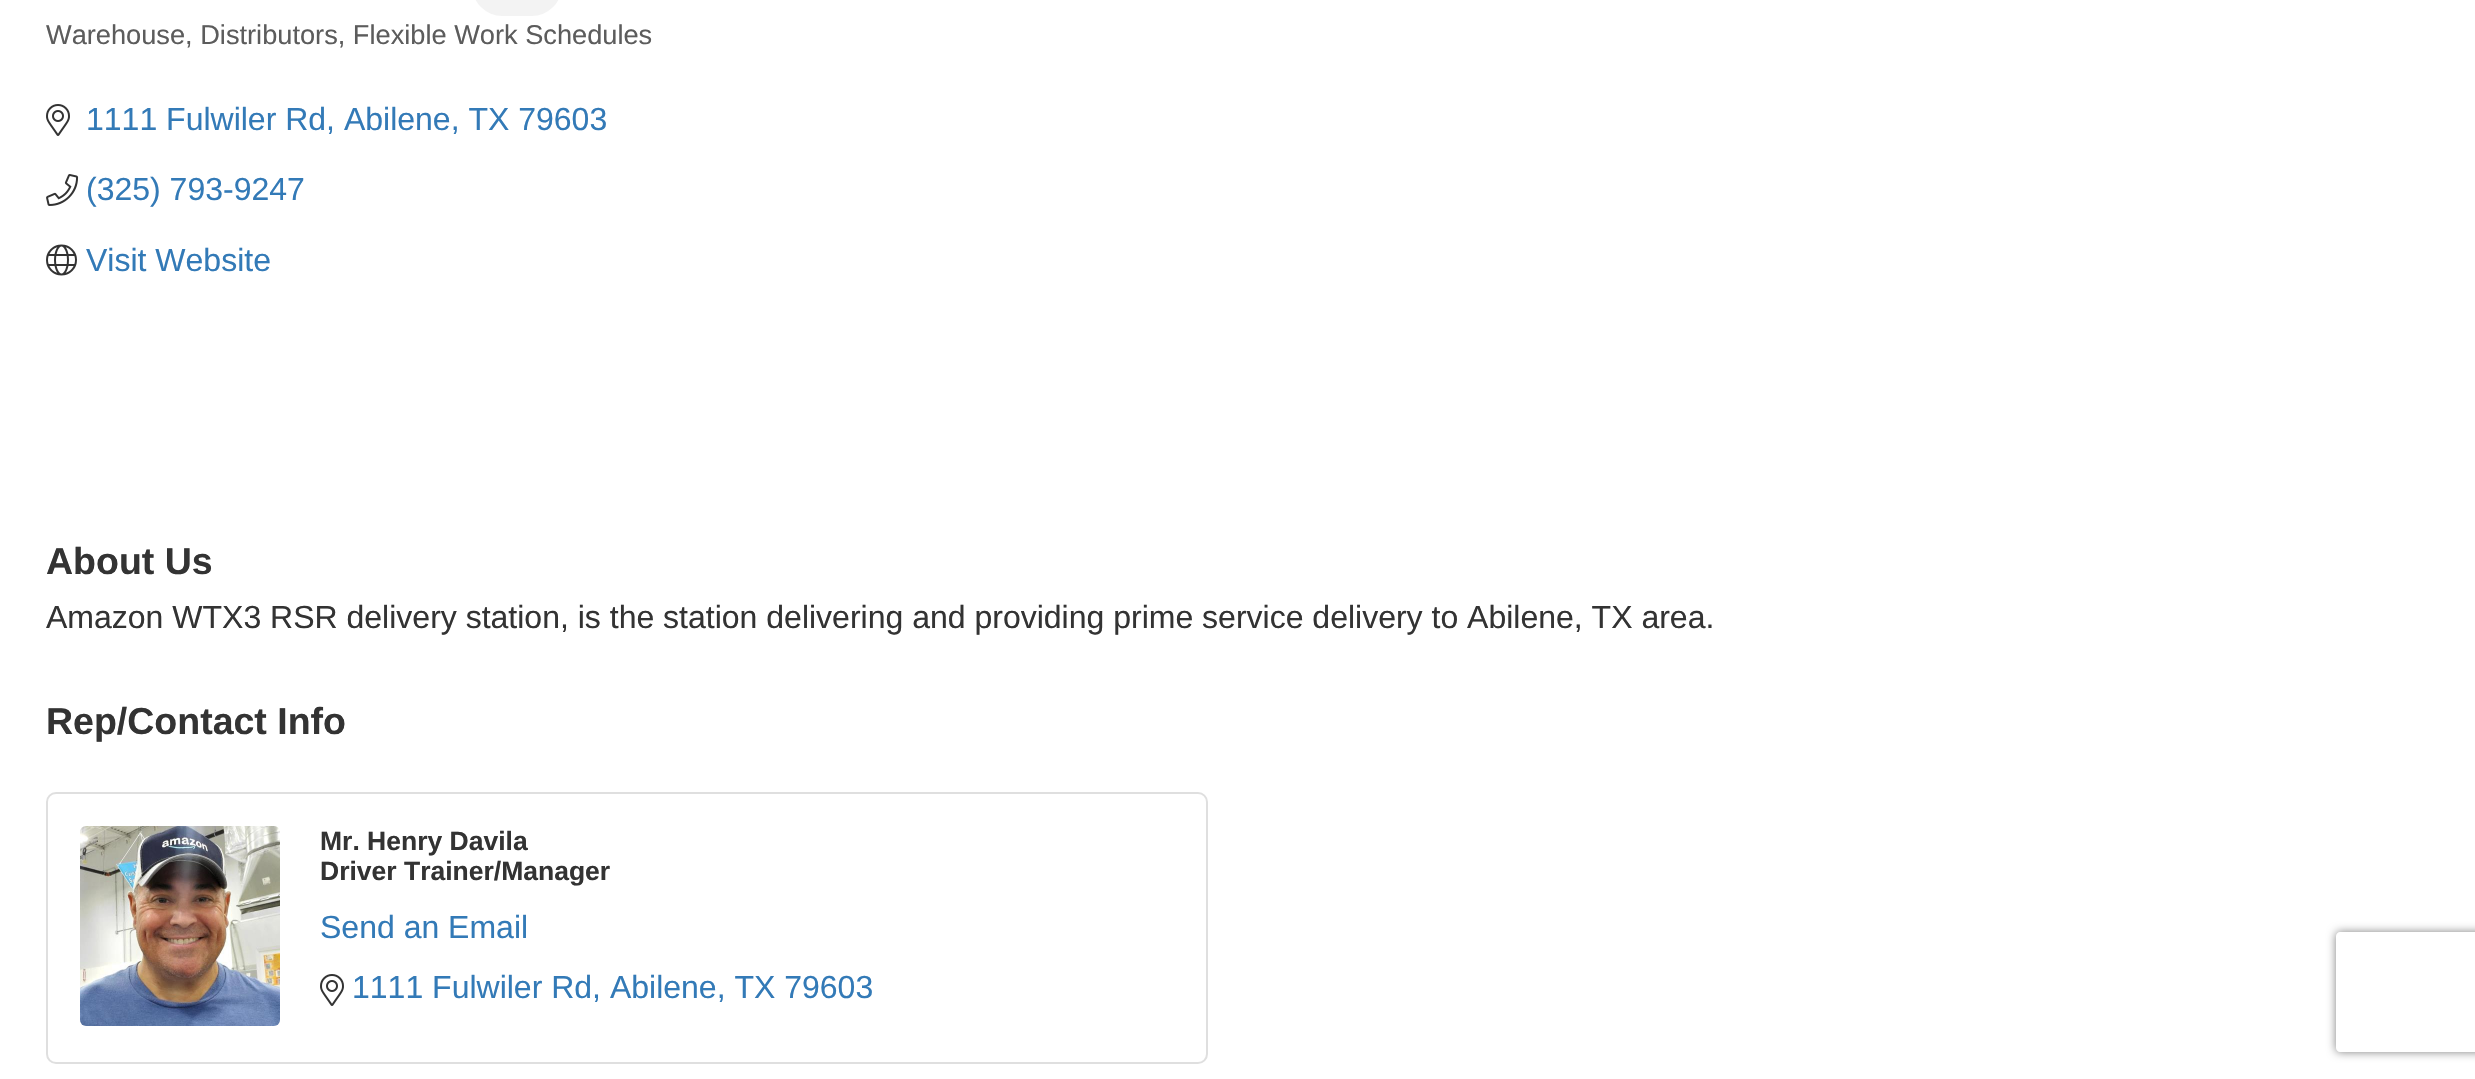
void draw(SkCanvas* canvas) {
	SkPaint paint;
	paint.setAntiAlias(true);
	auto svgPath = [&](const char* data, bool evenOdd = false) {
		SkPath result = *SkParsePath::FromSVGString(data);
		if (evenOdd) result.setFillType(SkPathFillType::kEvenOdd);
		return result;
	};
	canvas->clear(0xffffffff);
	paint.setColor(0xfff3f3f3);
	canvas->drawRoundRect(SkRect::MakeXYWH(472, -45, 90, 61), 45, 45, paint);
	SkFont f1(fontMgr->matchFamilyStyle("Liberation Sans", SkFontStyle::Normal()), 27.2);
	f1.setSubpixel(true);
	paint.setColor(0xff5c5c5c);
	canvas->drawString("Warehouse, Distributors, Flexible Work Schedules", 46, 44, f1, paint);
	canvas->drawImageRect(SkImages::DeferredFromEncodedData(SkData::MakeFromFileName("img1.png")), SkRect::MakeXYWH(46, 104, 24, 32), SkSamplingOptions());
	SkFont f2(fontMgr->matchFamilyStyle("Liberation Sans", SkFontStyle::Normal()), 32);
	f2.setSubpixel(true);
	paint.setColor(0xff337ab7);
	canvas->drawString("1111 Fulwiler Rd, Abilene, TX 79603", 86, 130, f2, paint);
	canvas->drawImageRect(SkImages::DeferredFromEncodedData(SkData::MakeFromFileName("img2.png")), SkRect::MakeXYWH(46, 174, 33, 32), SkSamplingOptions());
	canvas->drawString("(325) 793-9247", 86, 200, f2, paint);
	canvas->drawImageRect(SkImages::DeferredFromEncodedData(SkData::MakeFromFileName("img3.png")), SkRect::MakeXYWH(46, 244, 31, 32), SkSamplingOptions());
	canvas->drawString("Visit Website", 86, 271, f2, paint);
	SkFont f3(fontMgr->matchFamilyStyle("Liberation Sans", SkFontStyle::Bold()), 37.5);
	f3.setSubpixel(true);
	paint.setColor(0xff333333);
	canvas->drawString("About Us", 46, 574, f3, paint);
	canvas->drawString("Amazon WTX3 RSR delivery station, is the station delivering and providing prime service delivery to Abilene, TX area.", 46, 628, f2, paint);
	canvas->drawString("Rep/Contact Info", 46, 734, f3, paint);
	paint.setStroke(true);
	paint.setStrokeWidth(2);
	paint.setColor(0xffdfdfdf);
	canvas->drawRoundRect(SkRect::MakeXYWH(47, 793, 1160, 270), 9, 9, paint);
	canvas->drawImageRect(SkImages::DeferredFromEncodedData(SkData::MakeFromFileName("img4.png")), SkRect::MakeXYWH(80, 826, 200, 200), SkSamplingOptions());
	SkFont f4(fontMgr->matchFamilyStyle("Liberation Sans", SkFontStyle::Bold()), 26.5);
	f4.setSubpixel(true);
	paint.setStroke(false);
	paint.setColor(0xff333333);
	canvas->drawString("Mr. Henry Davila", 320, 850, f4, paint);
	canvas->drawString("Driver Trainer/Manager", 320, 880, f4, paint);
	paint.setColor(0xff337ab7);
	canvas->drawString("Send an Email", 320, 938, f2, paint);
	canvas->drawImageRect(SkImages::DeferredFromEncodedData(SkData::MakeFromFileName("img1.png")), SkRect::MakeXYWH(320, 974, 24, 32), SkSamplingOptions());
	canvas->drawString("1111 Fulwiler Rd, Abilene, TX 79603", 352, 998, f2, paint);
	canvas->save();
	canvas->clipPath(svgPath("M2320 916H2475V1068H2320ZM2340 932H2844C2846 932 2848 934 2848 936V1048C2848 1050 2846 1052 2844 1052H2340C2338 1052 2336 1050 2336 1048V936C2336 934 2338 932 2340 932Z", true), true);
	paint.setColor(0xff808080);
	paint.setMaskFilter(SkMaskFilter::MakeBlur(kNormal_SkBlurStyle, 5));
	canvas->drawRoundRect(SkRect::MakeXYWH(2336, 932, 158, 120), 4, 4, paint);
	paint.setMaskFilter(nullptr);
	canvas->restore();
}
